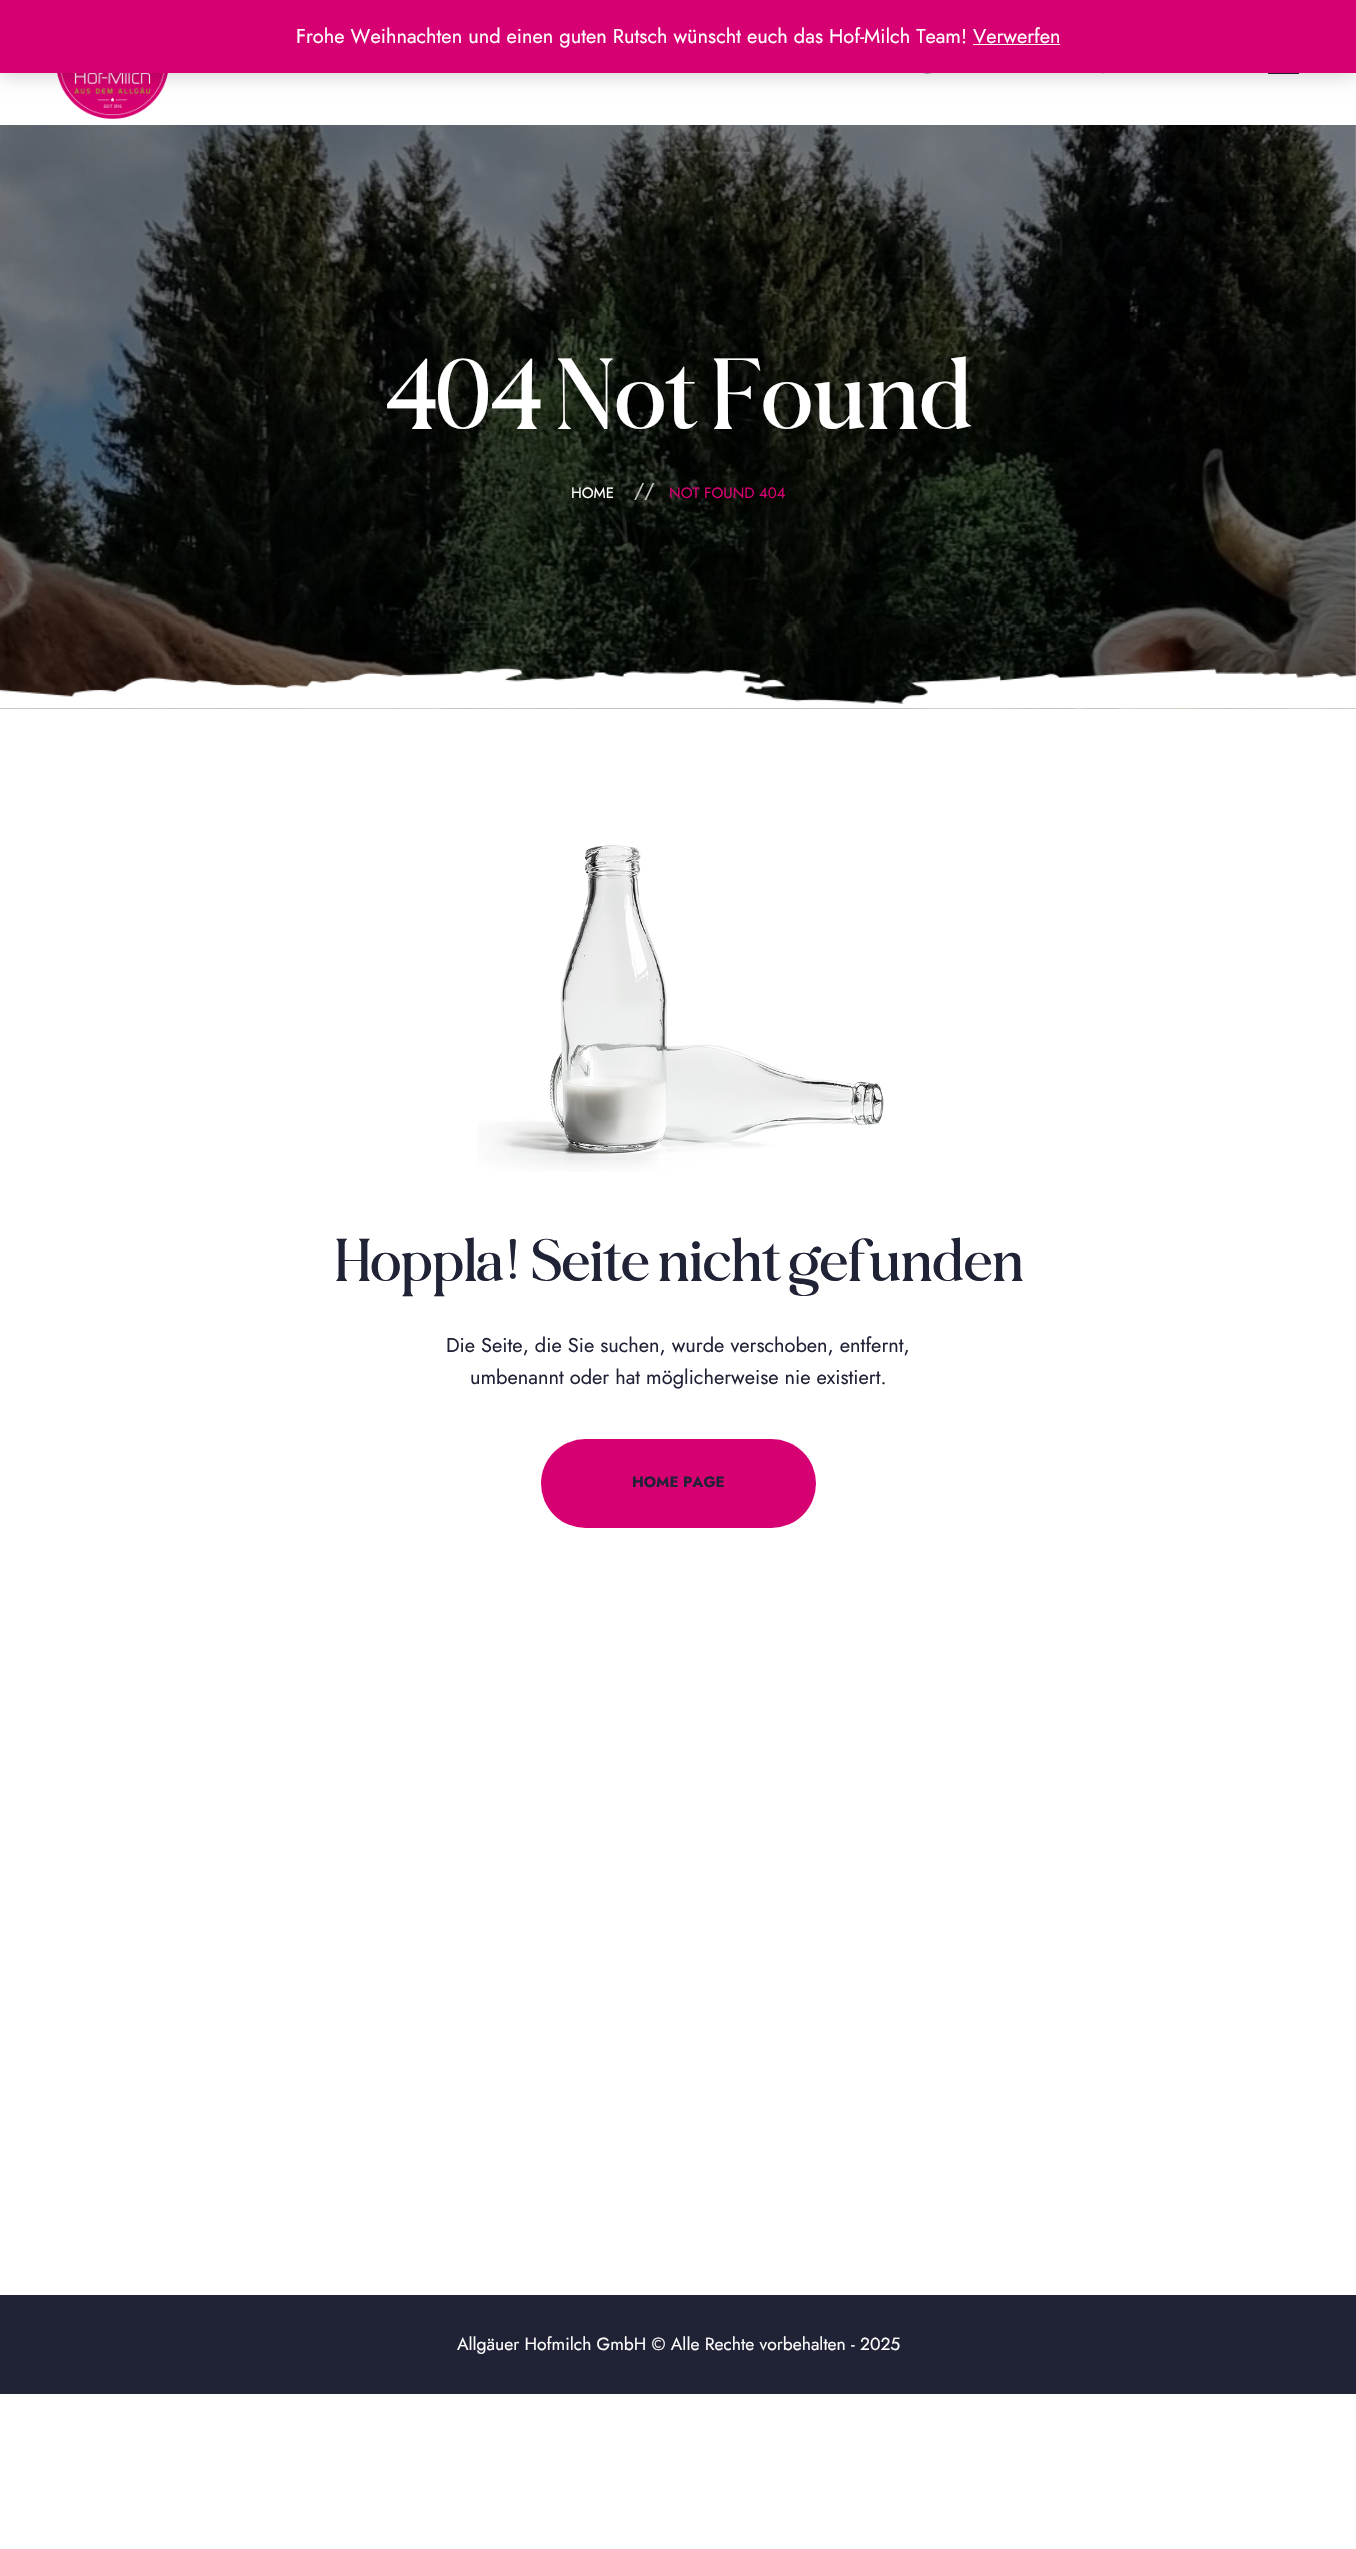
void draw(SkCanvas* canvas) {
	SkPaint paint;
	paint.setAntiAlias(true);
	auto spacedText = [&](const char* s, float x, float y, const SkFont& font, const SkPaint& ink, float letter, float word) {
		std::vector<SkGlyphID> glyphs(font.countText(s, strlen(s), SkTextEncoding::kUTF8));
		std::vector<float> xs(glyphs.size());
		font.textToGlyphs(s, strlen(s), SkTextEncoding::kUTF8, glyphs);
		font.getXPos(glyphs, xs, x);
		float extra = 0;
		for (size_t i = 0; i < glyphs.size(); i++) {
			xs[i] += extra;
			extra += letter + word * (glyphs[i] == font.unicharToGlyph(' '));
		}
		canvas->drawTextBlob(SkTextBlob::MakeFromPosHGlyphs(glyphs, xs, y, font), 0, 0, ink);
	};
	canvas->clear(0xffffffff);
	canvas->drawImageRect(SkImages::DeferredFromEncodedData(SkData::MakeFromFileName("img1.png")), SkRect::MakeXYWH(57, 73, 111, 46), SkSamplingOptions());
	canvas->drawImageRect(SkImages::DeferredFromEncodedData(SkData::MakeFromFileName("img2.png")), SkRect::MakeXYWH(924, 73, 7, 1), SkSamplingOptions());
	canvas->drawImageRect(SkImages::DeferredFromEncodedData(SkData::MakeFromFileName("img3.png")), SkRect::MakeXYWH(1102, 73, 2, 1), SkSamplingOptions());
	paint.setColor(0xff202236);
	canvas->drawRect(SkRect::MakeXYWH(1268, 73, 31, 1), paint);
	paint.setColor(0x33000000);
	paint.setMaskFilter(SkMaskFilter::MakeBlur(kNormal_SkBlurStyle, 10));
	canvas->drawRect(SkRect::MakeXYWH(0, 1, 1356, 73), paint);
	paint.setMaskFilter(nullptr);
	paint.setColor(0xffd70073);
	canvas->drawRect(SkRect::MakeXYWH(0, 0, 1356, 73), paint);
	SkFont f1(fontMgr->matchFamilyStyle("Jost", SkFontStyle::Normal()), 20);
	f1.setSubpixel(true);
	paint.setColor(0xffffffff);
	canvas->drawString("Frohe Weihnachten und einen guten Rutsch wünscht euch das Hof-Milch Team! Verwerfen", 296, 43, f1, paint);
	paint.setColor(0xfffcfbfe);
	canvas->drawRect(SkRect::MakeXYWH(973, 44, 87, 1), paint);
	canvas->drawImageRect(SkImages::DeferredFromEncodedData(SkData::MakeFromFileName("img4.png")), SkRect::MakeXYWH(0, 125, 1356, 584), SkSamplingOptions());
	SkFont f2(fontMgr->matchFamilyStyle("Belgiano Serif", SkFontStyle::Normal()), 100);
	f2.setSubpixel(true);
	paint.setColor(0xffffffff);
	spacedText("404 Not Found", 384, 429, f2, paint, -1.25, 0);
	SkFont f3(fontMgr->matchFamilyStyle("Jost", SkFontStyle::Normal()), 15);
	f3.setSubpixel(true);
	canvas->drawString("HOME", 571, 498, f3, paint);
	paint.setColor(0xffc6c7c5);
	canvas->drawString("//", 634, 497, f1, paint);
	paint.setColor(0xffd70073);
	canvas->drawString("NOT FOUND 404", 669, 498, f3, paint);
	canvas->drawImageRect(SkImages::DeferredFromEncodedData(SkData::MakeFromFileName("img5.png")), SkRect::MakeXYWH(0, 668, 1356, 41), SkSamplingOptions());
	canvas->drawImageRect(SkImages::DeferredFromEncodedData(SkData::MakeFromFileName("img6.png")), SkRect::MakeXYWH(477, 845, 407, 327), SkSamplingOptions());
	SkFont f4(fontMgr->matchFamilyStyle("Belgiano Serif", SkFontStyle::Normal()), 60);
	f4.setSubpixel(true);
	paint.setColor(0xff202236);
	spacedText("Hoppla! Seite nicht gefunden", 334, 1281, f4, paint, -1.25, 0);
	canvas->drawString("Die Seite, die Sie suchen, wurde verschoben, entfernt,", 446, 1352, f1, paint);
	canvas->drawString("umbenannt oder hat möglicherweise nie existiert.", 470, 1384, f1, paint);
	paint.setColor(0xffd70073);
	canvas->drawRoundRect(SkRect::MakeXYWH(541, 1439, 275, 89), 44.5, 44.5, paint);
	SkFont f5(fontMgr->matchFamilyStyle("Jost", SkFontStyle::Bold()), 15);
	f5.setSubpixel(true);
	paint.setColor(0xff202236);
	canvas->drawString("HOME PAGE", 632, 1487, f5, paint);
	canvas->drawRect(SkRect::MakeXYWH(0, 2295, 1356, 99), paint);
	SkFont f6(fontMgr->matchFamilyStyle("Jost", SkFontStyle::Normal()), 17.5);
	f6.setSubpixel(true);
	paint.setColor(0xffffffff);
	canvas->drawString("Allgäuer Hofmilch GmbH © Alle Rechte vorbehalten - 2025", 457, 2350, f6, paint);
}
